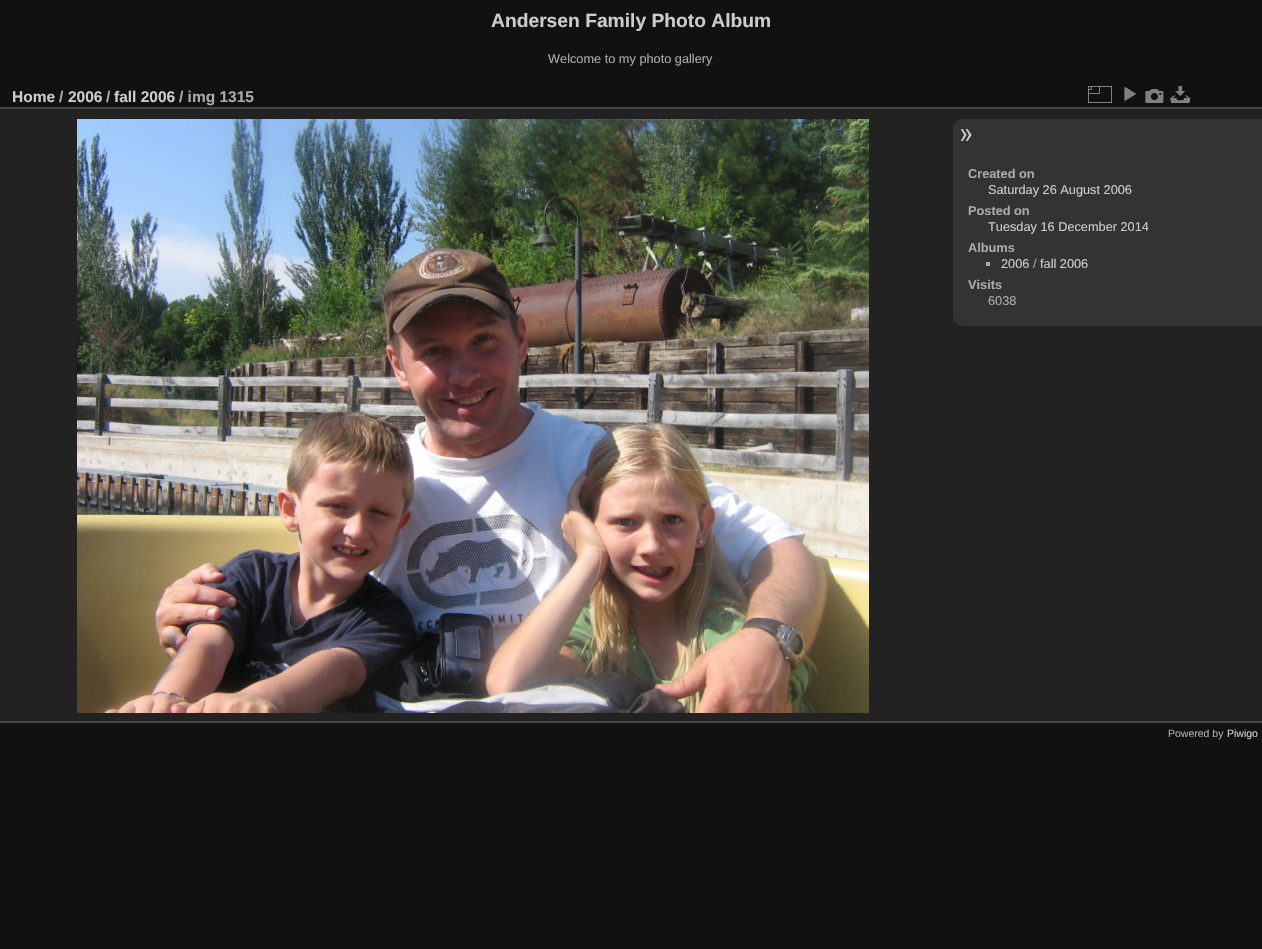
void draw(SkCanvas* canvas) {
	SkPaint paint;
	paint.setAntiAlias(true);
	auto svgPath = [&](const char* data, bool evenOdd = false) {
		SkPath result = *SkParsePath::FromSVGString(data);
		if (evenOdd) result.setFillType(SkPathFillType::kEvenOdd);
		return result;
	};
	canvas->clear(0xff111111);
	SkFont f1(fontMgr->matchFamilyStyle("Liberation Sans", SkFontStyle::Bold()), 19.25);
	f1.setSubpixel(true);
	paint.setColor(0xffcccccc);
	canvas->drawString("Andersen Family Photo Album", 491, 27, f1, paint);
	SkFont f2(fontMgr->matchFamilyStyle("Liberation Sans", SkFontStyle::Normal()), 12.75);
	f2.setSubpixel(true);
	paint.setColor(0xffaaaaaa);
	canvas->drawString("Welcome to my photo gallery", 548, 63, f2, paint);
	paint.setColor(0xff222222);
	canvas->drawRect(SkRect::MakeXYWH(0, 109, 1262, 612), paint);
	paint.setColor(0xff444444);
	canvas->drawRect(SkRect::MakeXYWH(0, 721, 1262, 2), paint);
	canvas->drawRect(SkRect::MakeXYWH(0, 107, 1262, 2), paint);
	SkFont f3(fontMgr->matchFamilyStyle("Liberation Sans", SkFontStyle::Bold()), 15.5);
	f3.setSubpixel(true);
	paint.setColor(0xffcccccc);
	canvas->drawString("Home", 12, 102, f3, paint);
	paint.setColor(0xffaaaaaa);
	canvas->drawString("/", 59, 102, f3, paint);
	paint.setColor(0xffcccccc);
	canvas->drawString("2006", 68, 102, f3, paint);
	paint.setColor(0xffaaaaaa);
	canvas->drawString("/", 106, 102, f3, paint);
	paint.setColor(0xffcccccc);
	canvas->drawString("fall 2006", 114, 102, f3, paint);
	paint.setColor(0xffaaaaaa);
	canvas->drawString("/ img 1315", 179, 102, f3, paint);
	canvas->drawImageRect(SkImages::DeferredFromEncodedData(SkData::MakeFromFileName("img1.png")), SkRect::MakeXYWH(1088, 86, 24, 17), SkSamplingOptions());
	canvas->drawImageRect(SkImages::DeferredFromEncodedData(SkData::MakeFromFileName("img2.png")), SkRect::MakeXYWH(1124, 87, 12, 14), SkSamplingOptions());
	canvas->drawImageRect(SkImages::DeferredFromEncodedData(SkData::MakeFromFileName("img3.png")), SkRect::MakeXYWH(1145, 89, 19, 14), SkSamplingOptions());
	canvas->drawImageRect(SkImages::DeferredFromEncodedData(SkData::MakeFromFileName("img4.png")), SkRect::MakeXYWH(1170, 86, 21, 17), SkSamplingOptions());
	canvas->drawImageRect(SkImages::DeferredFromEncodedData(SkData::MakeFromFileName("img5.png")), SkRect::MakeXYWH(77, 119, 792, 594), SkSamplingOptions());
	paint.setColor(0xff333333);
	canvas->drawPath(svgPath("M963 119H1262V326H963C957.5 326 953 321.5 953 316V129C953 123.5 957.5 119 963 119Z"), paint);
	canvas->drawImageRect(SkImages::DeferredFromEncodedData(SkData::MakeFromFileName("img6.png")), SkRect::MakeXYWH(960, 129, 12, 12), SkSamplingOptions());
	SkFont f4(fontMgr->matchFamilyStyle("Liberation Sans", SkFontStyle::Bold()), 12.75);
	f4.setSubpixel(true);
	paint.setColor(0xffaaaaaa);
	canvas->drawString("Created on", 968, 178, f4, paint);
	paint.setColor(0xffcccccc);
	canvas->drawString("Saturday 26 August 2006", 988, 194, f2, paint);
	paint.setColor(0xffaaaaaa);
	canvas->drawString("Posted on", 968, 215, f4, paint);
	paint.setColor(0xffcccccc);
	canvas->drawString("Tuesday 16 December 2014", 988, 231, f2, paint);
	paint.setColor(0xffaaaaaa);
	canvas->drawString("Albums", 968, 252, f4, paint);
	canvas->drawRect(SkRect::MakeXYWH(986, 262, 4, 4), paint);
	paint.setColor(0xffcccccc);
	canvas->drawString("2006", 1001, 268, f2, paint);
	paint.setColor(0xffaaaaaa);
	canvas->drawString("/", 1033, 268, f2, paint);
	paint.setColor(0xffcccccc);
	canvas->drawString("fall 2006", 1040, 268, f2, paint);
	paint.setColor(0xffaaaaaa);
	canvas->drawString("Visits", 968, 289, f4, paint);
	canvas->drawString("6038", 988, 305, f2, paint);
	SkFont f5(fontMgr->matchFamilyStyle("Liberation Sans", SkFontStyle::Normal()), 10.5);
	f5.setSubpixel(true);
	canvas->drawString("Powered by", 1168, 737, f5, paint);
	paint.setColor(0xffcccccc);
	canvas->drawString("Piwigo", 1227, 737, f5, paint);
}
